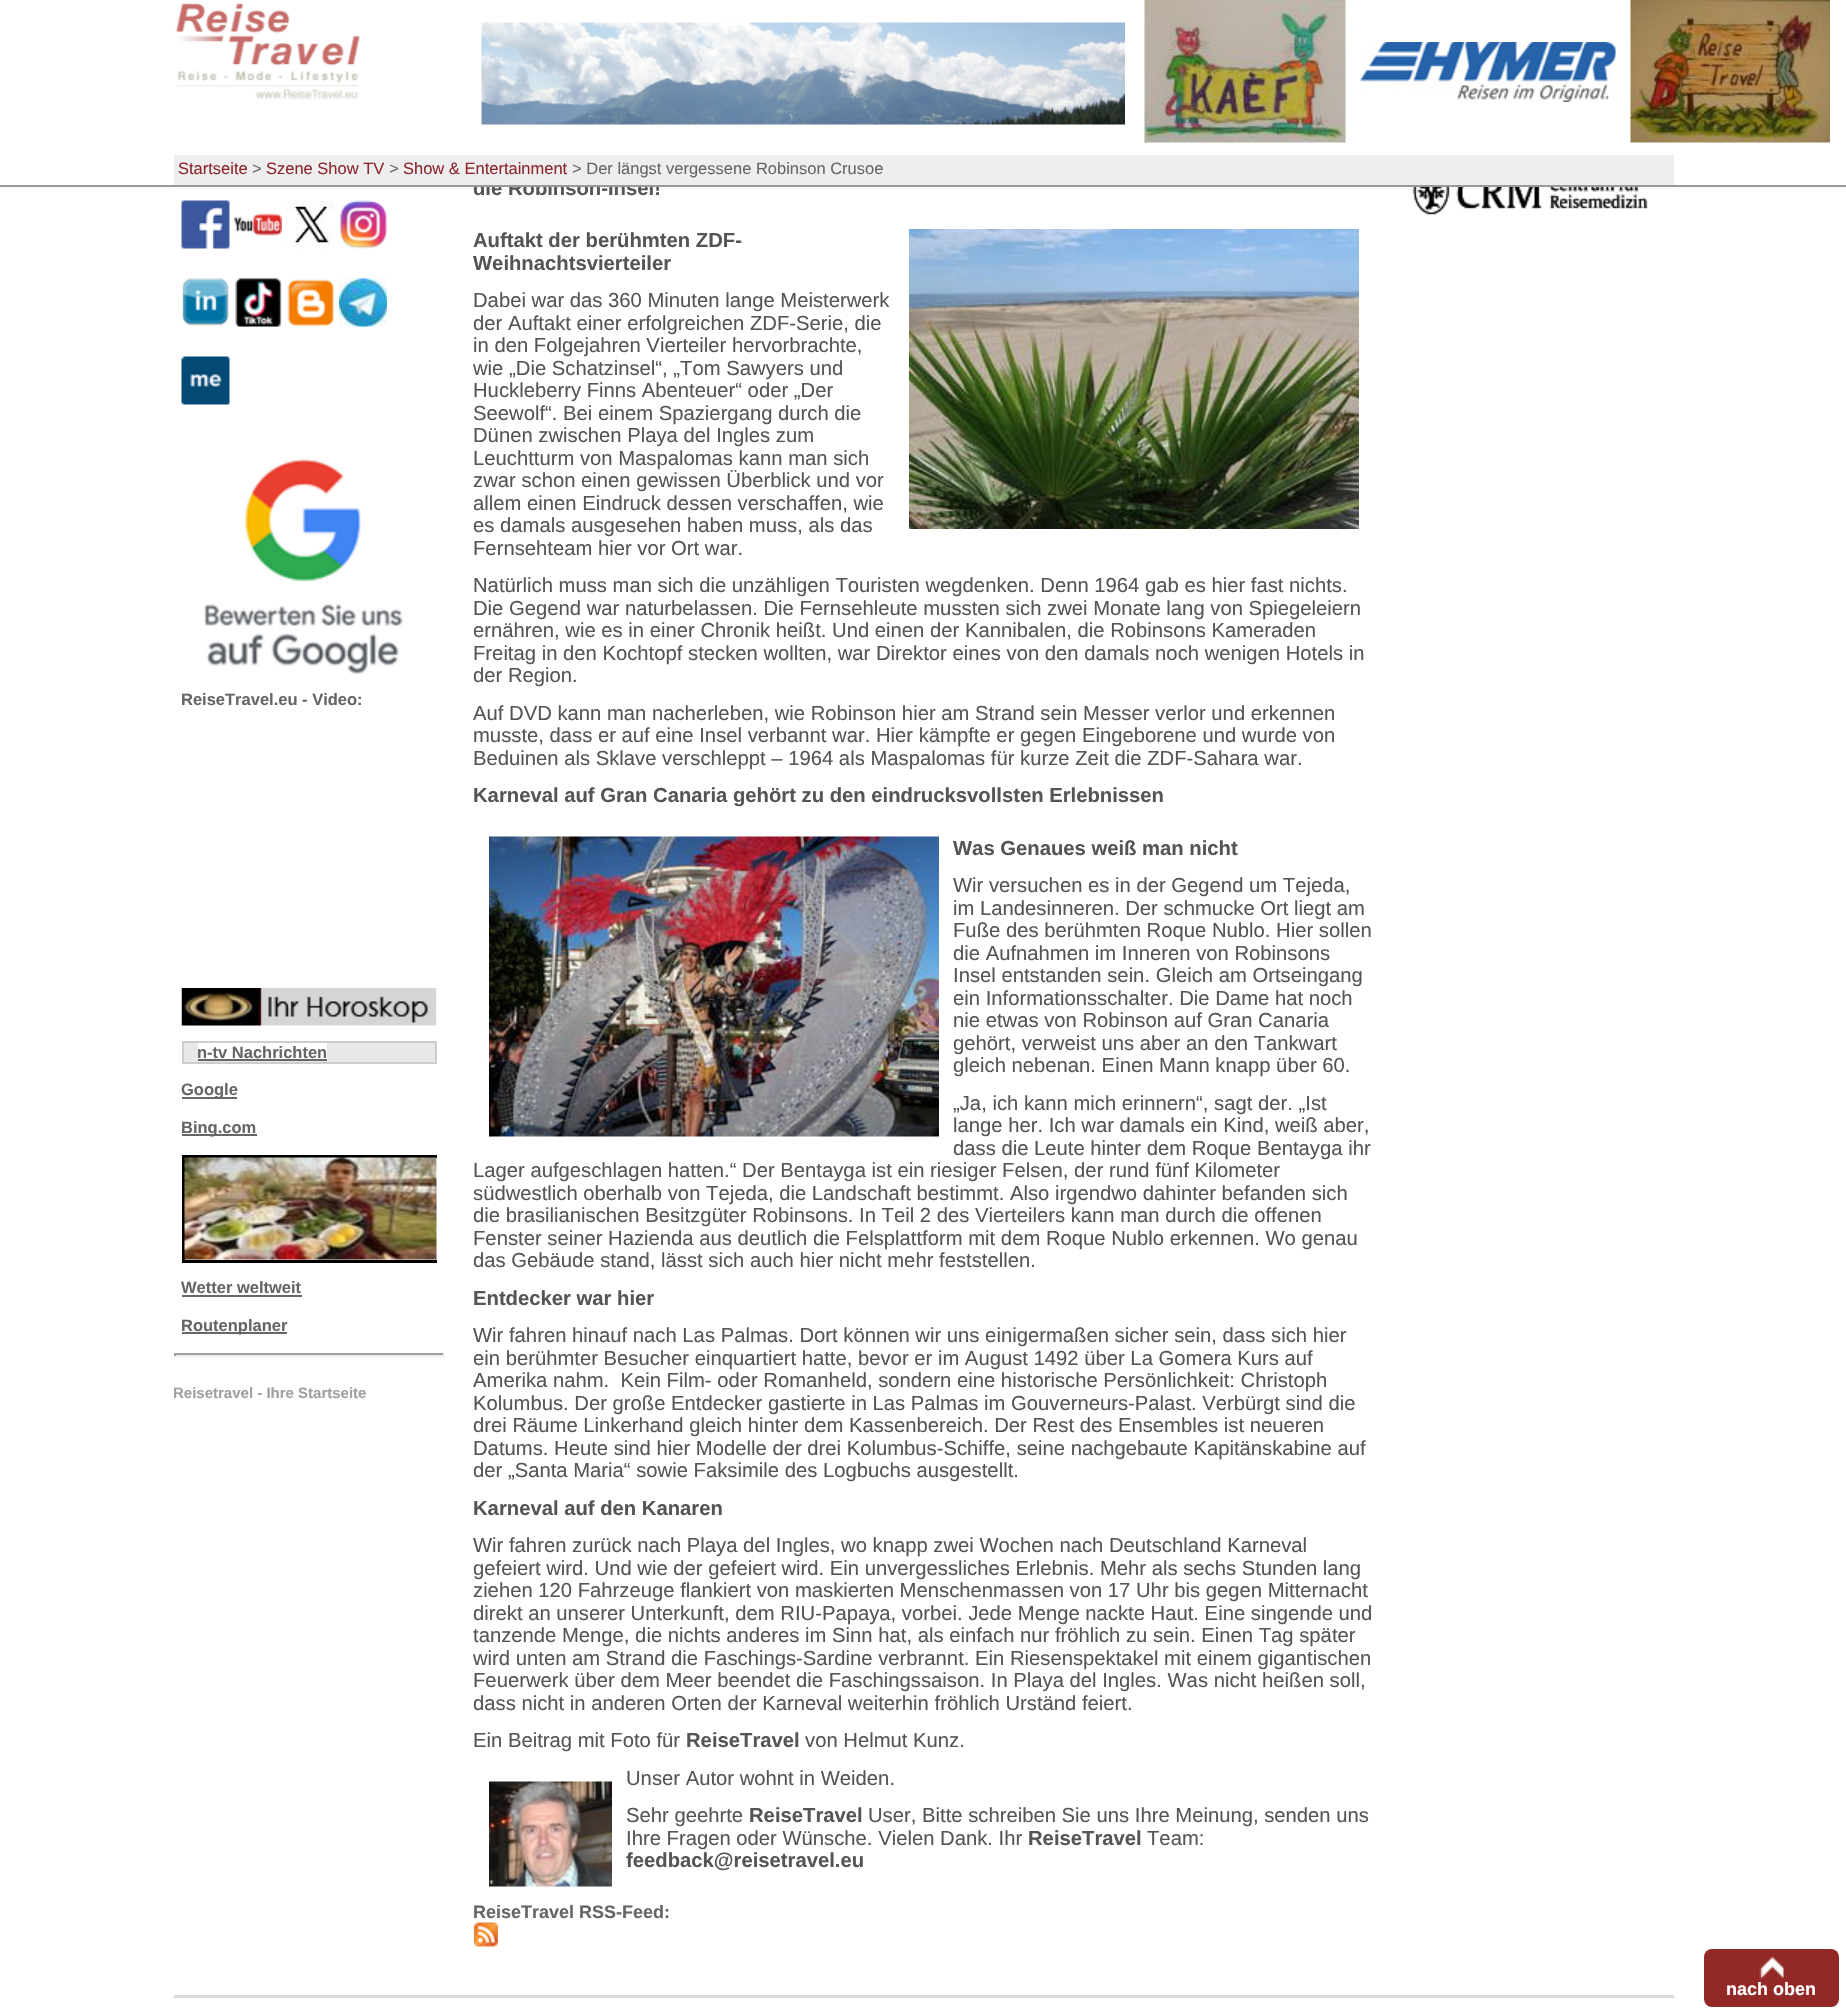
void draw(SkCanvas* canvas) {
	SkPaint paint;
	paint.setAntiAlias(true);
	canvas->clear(0xffffffff);
	SkFont f1(fontMgr->matchFamilyStyle("Liberation Sans", SkFontStyle::Bold()), 20.25);
	f1.setSubpixel(true);
	paint.setColor(0xff555555);
	canvas->drawString("die Robinson-Insel!", 473, 195, f1, paint);
	paint.setColor(0xffffffff);
	canvas->drawRect(SkRect::MakeXYWH(475, 180, 185, 5), paint);
	paint.setColor(0xff999999);
	canvas->drawRect(SkRect::MakeXYWH(0, 185, 1846, 2), paint);
	canvas->drawImageRect(SkImages::DeferredFromEncodedData(SkData::MakeFromFileName("img1.png")), SkRect::MakeXYWH(175, 3, 186, 97), SkSamplingOptions());
	canvas->drawImageRect(SkImages::DeferredFromEncodedData(SkData::MakeFromFileName("img2.png")), SkRect::MakeXYWH(481, 22, 644, 103), SkSamplingOptions());
	canvas->drawImageRect(SkImages::DeferredFromEncodedData(SkData::MakeFromFileName("img3.png")), SkRect::MakeXYWH(1144, 0, 202, 143), SkSamplingOptions());
	canvas->drawImageRect(SkImages::DeferredFromEncodedData(SkData::MakeFromFileName("img4.png")), SkRect::MakeXYWH(1360, 42, 256, 60), SkSamplingOptions());
	canvas->drawImageRect(SkImages::DeferredFromEncodedData(SkData::MakeFromFileName("img5.png")), SkRect::MakeXYWH(1630, 0, 200, 143), SkSamplingOptions());
	paint.setColor(0xffeeeeee);
	canvas->drawRect(SkRect::MakeXYWH(174, 155, 1500, 30), paint);
	SkFont f2(fontMgr->matchFamilyStyle("Liberation Sans", SkFontStyle::Normal()), 16.5);
	f2.setSubpixel(true);
	paint.setColor(0xff8c262c);
	canvas->drawString("Startseite", 178, 174, f2, paint);
	paint.setColor(0xff666666);
	canvas->drawString(">", 252, 174, f2, paint);
	paint.setColor(0xff8c262c);
	canvas->drawString("Szene Show TV", 266, 174, f2, paint);
	paint.setColor(0xff666666);
	canvas->drawString(">", 389, 174, f2, paint);
	paint.setColor(0xff8c262c);
	canvas->drawString("Show & Entertainment", 403, 174, f2, paint);
	paint.setColor(0xff666666);
	canvas->drawString("> Der längst vergessene Robinson Crusoe", 572, 174, f2, paint);
	paint.setColor(0xff555555);
	canvas->drawString("Auftakt der berühmten ZDF-", 473, 247, f1, paint);
	canvas->drawString("Weihnachtsvierteiler", 473, 270, f1, paint);
	canvas->drawImageRect(SkImages::DeferredFromEncodedData(SkData::MakeFromFileName("img6.png")), SkRect::MakeXYWH(909, 229, 450, 300), SkSamplingOptions());
	SkFont f3(fontMgr->matchFamilyStyle("Liberation Sans", SkFontStyle::Normal()), 20.25);
	f3.setSubpixel(true);
	canvas->drawString("Dabei war das 360 Minuten lange Meisterwerk", 473, 307, f3, paint);
	canvas->drawString("der Auftakt einer erfolgreichen ZDF-Serie, die", 473, 330, f3, paint);
	canvas->drawString("in den Folgejahren Vierteiler hervorbrachte,", 473, 352, f3, paint);
	canvas->drawString("wie „Die Schatzinsel“, „Tom Sawyers und", 473, 375, f3, paint);
	canvas->drawString("Huckleberry Finns Abenteuer“ oder „Der", 473, 397, f3, paint);
	canvas->drawString("Seewolf“. Bei einem Spaziergang durch die", 473, 420, f3, paint);
	canvas->drawString("Dünen zwischen Playa del Ingles zum", 473, 442, f3, paint);
	canvas->drawString("Leuchtturm von Maspalomas kann man sich", 473, 465, f3, paint);
	canvas->drawString("zwar schon einen gewissen Überblick und vor", 473, 487, f3, paint);
	canvas->drawString("allem einen Eindruck dessen verschaffen, wie", 473, 510, f3, paint);
	canvas->drawString("es damals ausgesehen haben muss, als das", 473, 532, f3, paint);
	canvas->drawString("Fernsehteam hier vor Ort war.", 473, 555, f3, paint);
	canvas->drawString("Natürlich muss man sich die unzähligen Touristen wegdenken. Denn 1964 gab es hier fast nichts.", 473, 592, f3, paint);
	canvas->drawString("Die Gegend war naturbelassen. Die Fernsehleute mussten sich zwei Monate lang von Spiegeleiern", 473, 615, f3, paint);
	canvas->drawString("ernähren, wie es in einer Chronik heißt. Und einen der Kannibalen, die Robinsons Kameraden", 473, 637, f3, paint);
	canvas->drawString("Freitag in den Kochtopf stecken wollten, war Direktor eines von den damals noch wenigen Hotels in", 473, 660, f3, paint);
	canvas->drawString("der Region.", 473, 682, f3, paint);
	canvas->drawString("Auf DVD kann man nacherleben, wie Robinson hier am Strand sein Messer verlor und erkennen", 473, 720, f3, paint);
	canvas->drawString("musste, dass er auf eine Insel verbannt war. Hier kämpfte er gegen Eingeborene und wurde von", 473, 742, f3, paint);
	canvas->drawString("Beduinen als Sklave verschleppt – 1964 als Maspalomas für kurze Zeit die ZDF-Sahara war.", 473, 765, f3, paint);
	canvas->drawString("Karneval auf Gran Canaria gehört zu den eindrucksvollsten Erlebnissen", 473, 802, f1, paint);
	canvas->drawImageRect(SkImages::DeferredFromEncodedData(SkData::MakeFromFileName("img7.png")), SkRect::MakeXYWH(489, 836, 450, 301), SkSamplingOptions());
	canvas->drawString("Was Genaues weiß man nicht", 953, 855, f1, paint);
	canvas->drawString("Wir versuchen es in der Gegend um Tejeda,", 953, 892, f3, paint);
	canvas->drawString("im Landesinneren. Der schmucke Ort liegt am", 953, 915, f3, paint);
	canvas->drawString("Fuße des berühmten Roque Nublo. Hier sollen", 953, 937, f3, paint);
	canvas->drawString("die Aufnahmen im Inneren von Robinsons", 953, 960, f3, paint);
	canvas->drawString("Insel entstanden sein. Gleich am Ortseingang", 953, 982, f3, paint);
	canvas->drawString("ein Informationsschalter. Die Dame hat noch", 953, 1005, f3, paint);
	canvas->drawString("nie etwas von Robinson auf Gran Canaria", 953, 1027, f3, paint);
	canvas->drawString("gehört, verweist uns aber an den Tankwart", 953, 1050, f3, paint);
	canvas->drawString("gleich nebenan. Einen Mann knapp über 60.", 953, 1072, f3, paint);
	canvas->drawString("„Ja, ich kann mich erinnern“, sagt der. „Ist", 953, 1110, f3, paint);
	canvas->drawString("lange her. Ich war damals ein Kind, weiß aber,", 953, 1132, f3, paint);
	canvas->drawString("dass die Leute hinter dem Roque Bentayga ihr", 953, 1155, f3, paint);
	canvas->drawString("Lager aufgeschlagen hatten.“ Der Bentayga ist ein riesiger Felsen, der rund fünf Kilometer", 473, 1177, f3, paint);
	canvas->drawString("südwestlich oberhalb von Tejeda, die Landschaft bestimmt. Also irgendwo dahinter befanden sich", 473, 1200, f3, paint);
	canvas->drawString("die brasilianischen Besitzgüter Robinsons. In Teil 2 des Vierteilers kann man durch die offenen", 473, 1222, f3, paint);
	canvas->drawString("Fenster seiner Hazienda aus deutlich die Felsplattform mit dem Roque Nublo erkennen. Wo genau", 473, 1245, f3, paint);
	canvas->drawString("das Gebäude stand, lässt sich auch hier nicht mehr feststellen.", 473, 1267, f3, paint);
	canvas->drawString("Entdecker war hier", 473, 1305, f1, paint);
	canvas->drawString("Wir fahren hinauf nach Las Palmas. Dort können wir uns einigermaßen sicher sein, dass sich hier", 473, 1342, f3, paint);
	canvas->drawString("ein berühmter Besucher einquartiert hatte, bevor er im August 1492 über La Gomera Kurs auf", 473, 1365, f3, paint);
	canvas->drawString("Amerika nahm.  Kein Film- oder Romanheld, sondern eine historische Persönlichkeit: Christoph", 473, 1387, f3, paint);
	canvas->drawString("Kolumbus. Der große Entdecker gastierte in Las Palmas im Gouverneurs-Palast. Verbürgt sind die", 473, 1410, f3, paint);
	canvas->drawString("drei Räume Linkerhand gleich hinter dem Kassenbereich. Der Rest des Ensembles ist neueren", 473, 1432, f3, paint);
	canvas->drawString("Datums. Heute sind hier Modelle der drei Kolumbus-Schiffe, seine nachgebaute Kapitänskabine auf", 473, 1455, f3, paint);
	canvas->drawString("der „Santa Maria“ sowie Faksimile des Logbuchs ausgestellt.", 473, 1477, f3, paint);
	canvas->drawString("Karneval auf den Kanaren", 473, 1515, f1, paint);
	canvas->drawString("Wir fahren zurück nach Playa del Ingles, wo knapp zwei Wochen nach Deutschland Karneval", 473, 1552, f3, paint);
	canvas->drawString("gefeiert wird. Und wie der gefeiert wird. Ein unvergessliches Erlebnis. Mehr als sechs Stunden lang", 473, 1575, f3, paint);
	canvas->drawString("ziehen 120 Fahrzeuge flankiert von maskierten Menschenmassen von 17 Uhr bis gegen Mitternacht", 473, 1597, f3, paint);
	canvas->drawString("direkt an unserer Unterkunft, dem RIU-Papaya, vorbei. Jede Menge nackte Haut. Eine singende und", 473, 1620, f3, paint);
	canvas->drawString("tanzende Menge, die nichts anderes im Sinn hat, als einfach nur fröhlich zu sein. Einen Tag später", 473, 1642, f3, paint);
	canvas->drawString("wird unten am Strand die Faschings-Sardine verbrannt. Ein Riesenspektakel mit einem gigantischen", 473, 1665, f3, paint);
	canvas->drawString("Feuerwerk über dem Meer beendet die Faschingssaison. In Playa del Ingles. Was nicht heißen soll,", 473, 1687, f3, paint);
	canvas->drawString("dass nicht in anderen Orten der Karneval weiterhin fröhlich Urständ feiert.", 473, 1710, f3, paint);
	canvas->drawString("Ein Beitrag mit Foto für", 473, 1747, f3, paint);
	canvas->drawString("ReiseTravel", 686, 1747, f1, paint);
	canvas->drawString("von Helmut Kunz.", 805, 1747, f3, paint);
	canvas->drawString("Unser Autor wohnt in Weiden.", 626, 1785, f3, paint);
	canvas->drawImageRect(SkImages::DeferredFromEncodedData(SkData::MakeFromFileName("img8.png")), SkRect::MakeXYWH(489, 1781, 123, 106), SkSamplingOptions());
	canvas->drawString("Sehr geehrte", 626, 1822, f3, paint);
	canvas->drawString("ReiseTravel", 749, 1822, f1, paint);
	canvas->drawString("User, Bitte schreiben Sie uns Ihre Meinung, senden uns", 868, 1822, f3, paint);
	canvas->drawString("Ihre Fragen oder Wünsche. Vielen Dank. Ihr", 626, 1845, f3, paint);
	canvas->drawString("ReiseTravel", 1028, 1845, f1, paint);
	canvas->drawString("Team:", 1147, 1845, f3, paint);
	canvas->drawString("feedback@reisetravel.eu", 626, 1867, f1, paint);
	SkFont f4(fontMgr->matchFamilyStyle("Liberation Sans", SkFontStyle::Bold()), 18);
	f4.setSubpixel(true);
	paint.setColor(0xff666666);
	canvas->drawString("ReiseTravel RSS-Feed:", 473, 1918, f4, paint);
	canvas->drawImageRect(SkImages::DeferredFromEncodedData(SkData::MakeFromFileName("img9.png")), SkRect::MakeXYWH(474, 1922, 24, 25), SkSamplingOptions());
	canvas->drawImageRect(SkImages::DeferredFromEncodedData(SkData::MakeFromFileName("img10.png")), SkRect::MakeXYWH(1412, 187, 236, 28), SkSamplingOptions());
	canvas->drawImageRect(SkImages::DeferredFromEncodedData(SkData::MakeFromFileName("img11.png")), SkRect::MakeXYWH(181, 200, 49, 49), SkSamplingOptions());
	canvas->drawImageRect(SkImages::DeferredFromEncodedData(SkData::MakeFromFileName("img12.png")), SkRect::MakeXYWH(234, 213, 48, 23), SkSamplingOptions());
	canvas->drawImageRect(SkImages::DeferredFromEncodedData(SkData::MakeFromFileName("img13.png")), SkRect::MakeXYWH(286, 200, 49, 49), SkSamplingOptions());
	canvas->drawImageRect(SkImages::DeferredFromEncodedData(SkData::MakeFromFileName("img14.png")), SkRect::MakeXYWH(340, 200, 47, 49), SkSamplingOptions());
	canvas->drawImageRect(SkImages::DeferredFromEncodedData(SkData::MakeFromFileName("img15.png")), SkRect::MakeXYWH(182, 278, 47, 48), SkSamplingOptions());
	canvas->drawImageRect(SkImages::DeferredFromEncodedData(SkData::MakeFromFileName("img16.png")), SkRect::MakeXYWH(235, 278, 47, 49), SkSamplingOptions());
	canvas->drawImageRect(SkImages::DeferredFromEncodedData(SkData::MakeFromFileName("img17.png")), SkRect::MakeXYWH(287, 279, 48, 48), SkSamplingOptions());
	canvas->drawImageRect(SkImages::DeferredFromEncodedData(SkData::MakeFromFileName("img18.png")), SkRect::MakeXYWH(339, 278, 48, 49), SkSamplingOptions());
	canvas->drawImageRect(SkImages::DeferredFromEncodedData(SkData::MakeFromFileName("img19.png")), SkRect::MakeXYWH(181, 356, 49, 49), SkSamplingOptions());
	canvas->drawImageRect(SkImages::DeferredFromEncodedData(SkData::MakeFromFileName("img20.png")), SkRect::MakeXYWH(204, 458, 200, 217), SkSamplingOptions());
	SkFont f5(fontMgr->matchFamilyStyle("Liberation Sans", SkFontStyle::Bold()), 16.5);
	f5.setSubpixel(true);
	canvas->drawString("ReiseTravel.eu - Video:", 181, 705, f5, paint);
	canvas->drawImageRect(SkImages::DeferredFromEncodedData(SkData::MakeFromFileName("img21.png")), SkRect::MakeXYWH(181, 988, 256, 38), SkSamplingOptions());
	paint.setColor(0xffe8e8e8);
	canvas->drawRect(SkRect::MakeXYWH(183, 1042, 253, 21), paint);
	paint.setStroke(true);
	paint.setStrokeWidth(2);
	paint.setColor(0xffcbced0);
	canvas->drawRect(SkRect::MakeXYWH(183, 1042, 253, 21), paint);
	paint.setStroke(false);
	paint.setColor(0xffffffff);
	canvas->drawRect(SkRect::MakeXYWH(198, 1043, 129, 16), paint);
	paint.setColor(0xff666666);
	canvas->drawString("n-tv Nachrichten", 197, 1058, f5, paint);
	canvas->drawRect(SkRect::MakeXYWH(198, 1059, 129, 2), paint);
	canvas->drawRect(SkRect::MakeXYWH(182, 1097, 55, 2), paint);
	canvas->drawString("Google", 181, 1095, f5, paint);
	canvas->drawRect(SkRect::MakeXYWH(182, 1134, 75, 2), paint);
	canvas->drawString("Bing.com", 181, 1133, f5, paint);
	canvas->save();
	canvas->clipRect(SkRect::MakeXYWH(182, 1155, 255, 123));
	paint.setStroke(true);
	paint.setStrokeWidth(3);
	paint.setColor(0xff000000);
	canvas->drawRect(SkRect::MakeXYWH(183.5, 1156.5, 258, 105), paint);
	canvas->restore();
	canvas->drawImageRect(SkImages::DeferredFromEncodedData(SkData::MakeFromFileName("img22.png")), SkRect::MakeXYWH(184, 1157, 253, 103), SkSamplingOptions());
	paint.setStroke(false);
	paint.setColor(0xff666666);
	canvas->drawString("Wetter weltweit", 181, 1293, f5, paint);
	canvas->drawRect(SkRect::MakeXYWH(182, 1295, 120, 2), paint);
	canvas->drawRect(SkRect::MakeXYWH(182, 1332, 105, 2), paint);
	canvas->drawString("Routenplaner", 181, 1331, f5, paint);
	paint.setColor(0xff9f9f9f);
	canvas->drawRect(SkRect::MakeXYWH(174, 1353, 270, 2), paint);
	paint.setColor(0xffeeeeee);
	canvas->drawRect(SkRect::MakeXYWH(443, 1353, 2, 3), paint);
	canvas->drawRect(SkRect::MakeXYWH(174, 1355, 270, 2), paint);
	paint.setColor(0xff9f9f9f);
	canvas->drawRect(SkRect::MakeXYWH(174, 1353, 2, 3), paint);
	SkFont f6(fontMgr->matchFamilyStyle("Liberation Sans", SkFontStyle::Bold()), 15);
	f6.setSubpixel(true);
	paint.setColor(0xffa0a0a0);
	canvas->drawString("Reisetravel - Ihre Startseite", 173, 1398, f6, paint);
	paint.setColor(0xffdadada);
	canvas->drawRect(SkRect::MakeXYWH(174, 1995, 1500, 3), paint);
	paint.setColor(0xff932927);
	canvas->drawRoundRect(SkRect::MakeXYWH(1704, 1949, 135, 58), 8, 8, paint);
	canvas->drawImageRect(SkImages::DeferredFromEncodedData(SkData::MakeFromFileName("img23.png")), SkRect::MakeXYWH(1759, 1956, 25, 23), SkSamplingOptions());
	paint.setColor(0xffffffff);
	canvas->drawString("nach oben", 1726, 1995, f4, paint);
}
